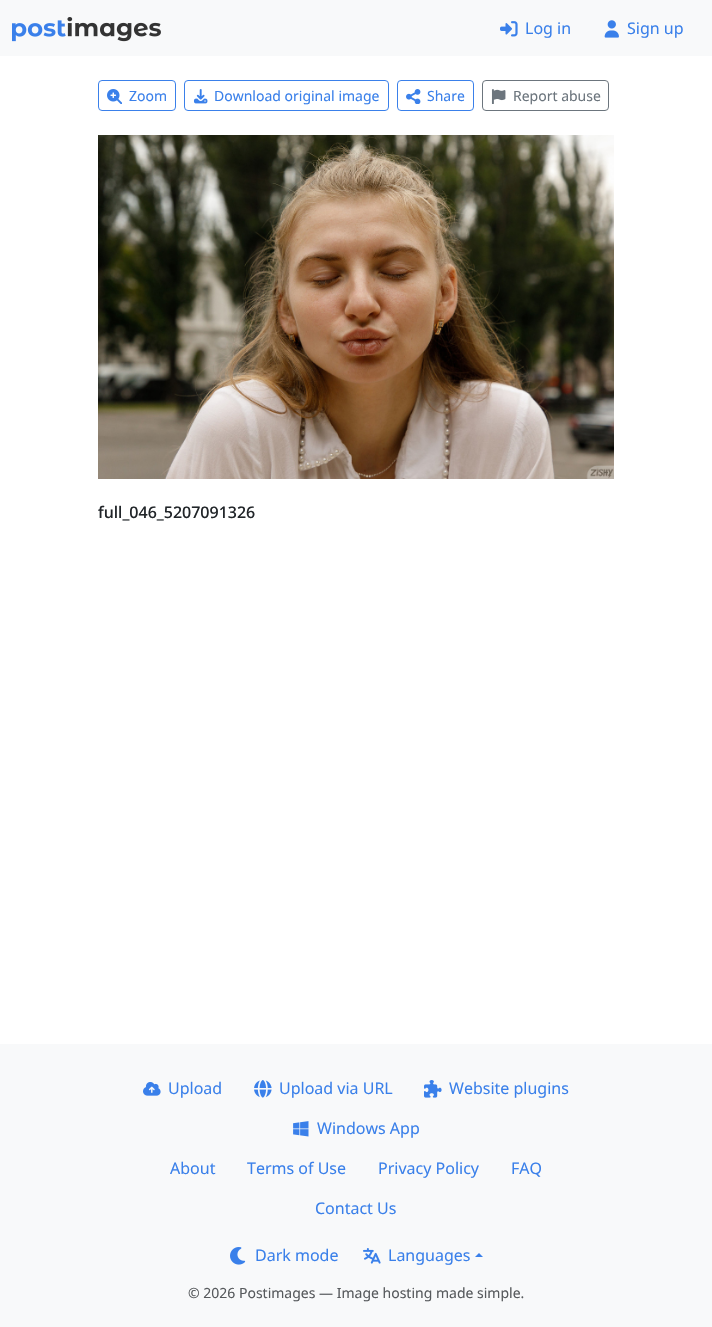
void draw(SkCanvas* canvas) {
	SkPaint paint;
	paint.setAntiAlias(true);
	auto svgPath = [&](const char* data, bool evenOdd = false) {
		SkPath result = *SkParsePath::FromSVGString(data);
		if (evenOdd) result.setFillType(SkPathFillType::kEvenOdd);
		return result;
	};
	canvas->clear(0xffffffff);
	paint.setColor(0xfff8f9fa);
	canvas->drawRect(SkRect::MakeXYWH(0, 0, 712, 56), paint);
	canvas->drawImageRect(SkImages::DeferredFromEncodedData(SkData::MakeFromFileName("img1.png")), SkRect::MakeXYWH(12, 17, 149, 25), SkSamplingOptions());
	canvas->drawImageRect(SkImages::DeferredFromEncodedData(SkData::MakeFromFileName("img2.png")), SkRect::MakeXYWH(500, 21, 18, 16), SkSamplingOptions());
	SkFont f1(fontMgr->matchFamilyStyle("Noto Sans", SkFontStyle::Normal()), 16);
	f1.setSubpixel(true);
	paint.setColor(0xff3a80ea);
	canvas->drawString("Log in", 525, 34, f1, paint);
	canvas->drawImageRect(SkImages::DeferredFromEncodedData(SkData::MakeFromFileName("img3.png")), SkRect::MakeXYWH(604, 20, 15, 18), SkSamplingOptions());
	canvas->drawString("Sign up", 627, 34, f1, paint);
	paint.setStroke(true);
	paint.setStrokeWidth(1);
	canvas->drawRoundRect(SkRect::MakeXYWH(98.5, 80.5, 77, 30), 3.5, 3.5, paint);
	canvas->drawImageRect(SkImages::DeferredFromEncodedData(SkData::MakeFromFileName("img4.png")), SkRect::MakeXYWH(107, 89, 15, 15), SkSamplingOptions());
	SkFont f2(fontMgr->matchFamilyStyle("Noto Sans", SkFontStyle::Normal()), 14);
	f2.setSubpixel(true);
	paint.setStroke(false);
	canvas->drawString("Zoom", 129, 101, f2, paint);
	paint.setStroke(true);
	canvas->drawRoundRect(SkRect::MakeXYWH(184.5, 80.5, 204, 30), 3.5, 3.5, paint);
	canvas->drawImageRect(SkImages::DeferredFromEncodedData(SkData::MakeFromFileName("img5.png")), SkRect::MakeXYWH(193, 89, 15, 15), SkSamplingOptions());
	paint.setStroke(false);
	canvas->drawString("Download original image", 214, 101, f2, paint);
	paint.setStroke(true);
	canvas->drawRoundRect(SkRect::MakeXYWH(397.5, 80.5, 76, 30), 3.5, 3.5, paint);
	canvas->drawImageRect(SkImages::DeferredFromEncodedData(SkData::MakeFromFileName("img6.png")), SkRect::MakeXYWH(406, 89, 15, 15), SkSamplingOptions());
	paint.setStroke(false);
	canvas->drawString("Share", 427, 101, f2, paint);
	paint.setStroke(true);
	paint.setColor(0xff6c757d);
	canvas->drawRoundRect(SkRect::MakeXYWH(482.5, 80.5, 126, 30), 3.5, 3.5, paint);
	canvas->drawImageRect(SkImages::DeferredFromEncodedData(SkData::MakeFromFileName("img7.png")), SkRect::MakeXYWH(491, 89, 15, 15), SkSamplingOptions());
	paint.setStroke(false);
	canvas->drawString("Report abuse", 513, 101, f2, paint);
	canvas->drawImageRect(SkImages::DeferredFromEncodedData(SkData::MakeFromFileName("img8.png")), SkRect::MakeXYWH(98, 135, 516, 344), SkSamplingOptions());
	SkFont f3(fontMgr->matchFamilyStyle("Noto Sans", SkFontStyle(500, SkFontStyle::kNormal_Width, SkFontStyle::kUpright_Slant)), 16);
	f3.setSubpixel(true);
	paint.setColor(0xff212529);
	canvas->drawString("full_046_5207091326", 98, 518, f3, paint);
	paint.setColor(0xfff8f9fa);
	canvas->drawRect(SkRect::MakeXYWH(0, 1044, 712, 283), paint);
	canvas->drawImageRect(SkImages::DeferredFromEncodedData(SkData::MakeFromFileName("img9.png")), SkRect::MakeXYWH(143, 1082, 18, 14), SkSamplingOptions());
	paint.setColor(0xff3a80ea);
	canvas->drawString("Upload", 168, 1094, f1, paint);
	canvas->drawImageRect(SkImages::DeferredFromEncodedData(SkData::MakeFromFileName("img10.png")), SkRect::MakeXYWH(254, 1080, 18, 18), SkSamplingOptions());
	canvas->drawString("Upload via URL", 279, 1094, f1, paint);
	canvas->drawImageRect(SkImages::DeferredFromEncodedData(SkData::MakeFromFileName("img11.png")), SkRect::MakeXYWH(424, 1080, 18, 18), SkSamplingOptions());
	canvas->drawString("Website plugins", 449, 1094, f1, paint);
	canvas->drawImageRect(SkImages::DeferredFromEncodedData(SkData::MakeFromFileName("img12.png")), SkRect::MakeXYWH(293, 1121, 16, 16), SkSamplingOptions());
	canvas->drawString("Windows App", 317, 1134, f1, paint);
	canvas->drawString("About", 170, 1174, f1, paint);
	canvas->drawString("Terms of Use", 247, 1174, f1, paint);
	canvas->drawString("Privacy Policy", 378, 1174, f1, paint);
	canvas->drawString("FAQ", 511, 1174, f1, paint);
	canvas->drawString("Contact Us", 315, 1214, f1, paint);
	canvas->drawImageRect(SkImages::DeferredFromEncodedData(SkData::MakeFromFileName("img13.png")), SkRect::MakeXYWH(230, 1247, 16, 18), SkSamplingOptions());
	canvas->drawString("Dark mode", 255, 1261, f1, paint);
	canvas->drawImageRect(SkImages::DeferredFromEncodedData(SkData::MakeFromFileName("img14.png")), SkRect::MakeXYWH(363, 1248, 18, 16), SkSamplingOptions());
	canvas->drawString("Languages", 388, 1261, f1, paint);
	canvas->drawPath(svgPath("M483 1257H475L479 1253Z"), paint);
	paint.setColor(0xff575a5d);
	canvas->drawString("© 2026 Postimages — Image hosting made simple.", 188, 1298, f2, paint);
}
